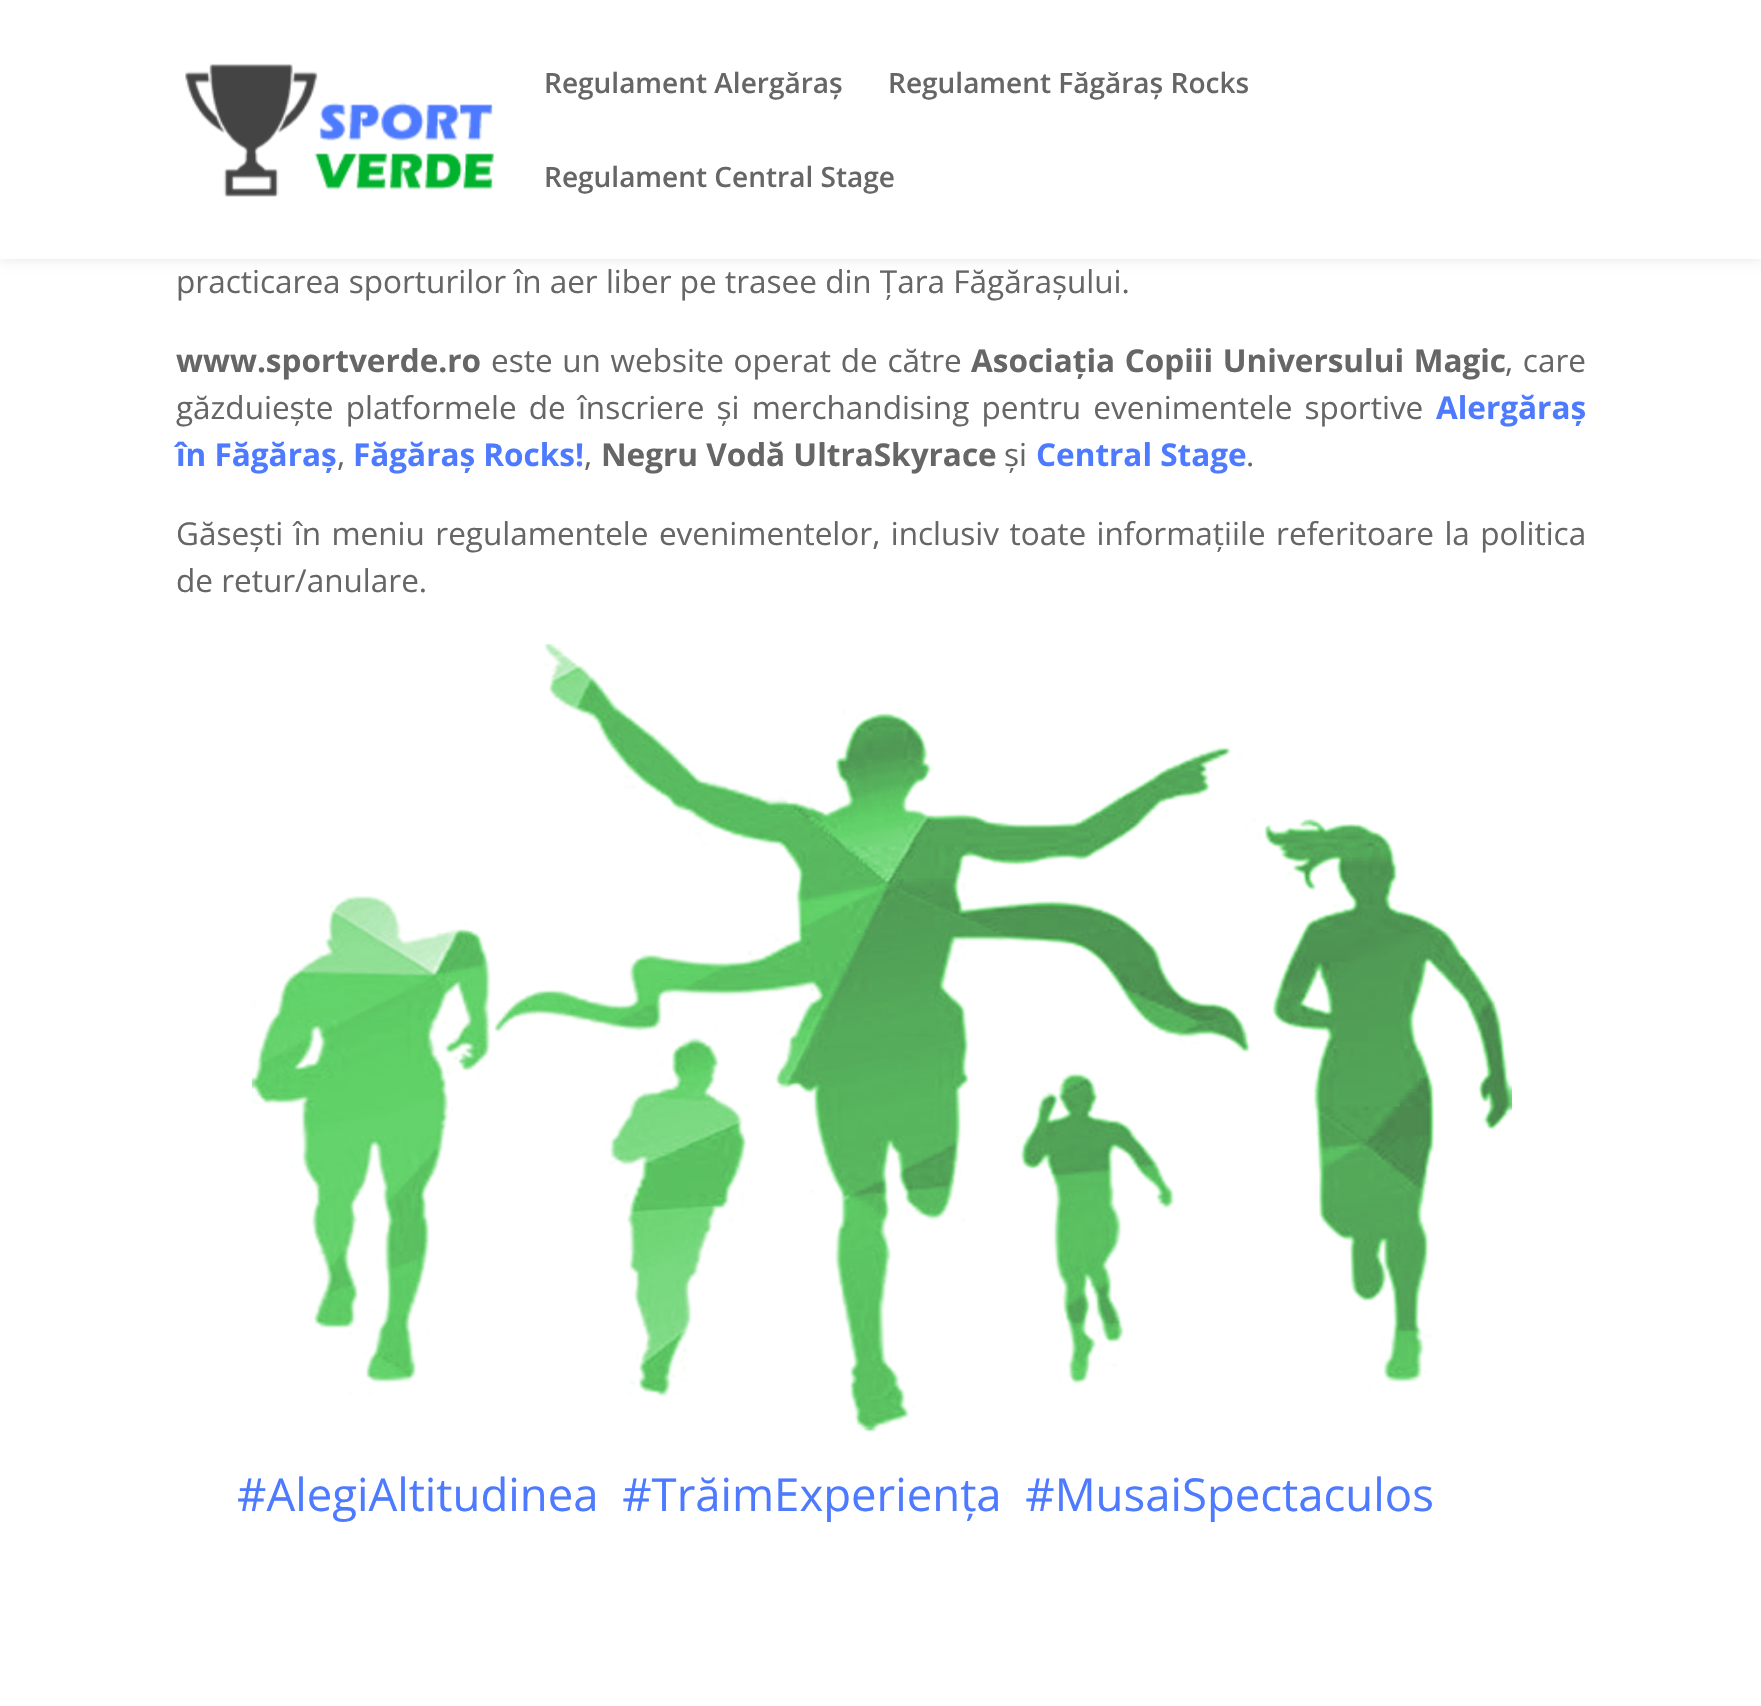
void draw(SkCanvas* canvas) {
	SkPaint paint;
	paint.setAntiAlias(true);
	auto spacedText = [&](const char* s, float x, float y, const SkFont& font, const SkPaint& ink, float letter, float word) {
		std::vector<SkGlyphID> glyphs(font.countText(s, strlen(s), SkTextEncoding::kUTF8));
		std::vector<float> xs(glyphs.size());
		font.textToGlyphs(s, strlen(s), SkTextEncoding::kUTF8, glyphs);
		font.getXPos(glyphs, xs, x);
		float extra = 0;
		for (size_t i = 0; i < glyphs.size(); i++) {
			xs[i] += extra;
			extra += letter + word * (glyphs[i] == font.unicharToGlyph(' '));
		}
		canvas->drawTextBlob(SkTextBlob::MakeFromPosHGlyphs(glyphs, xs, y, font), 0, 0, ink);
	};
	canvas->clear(0xffffffff);
	paint.setColor(0x1a000000);
	paint.setMaskFilter(SkMaskFilter::MakeBlur(kNormal_SkBlurStyle, 6));
	canvas->drawRect(SkRect::MakeXYWH(0, 0, 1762, 259), paint);
	paint.setMaskFilter(nullptr);
	paint.setColor(0xffffffff);
	canvas->drawRect(SkRect::MakeXYWH(0, 0, 1761, 259), paint);
	canvas->drawImageRect(SkImages::DeferredFromEncodedData(SkData::MakeFromFileName("img1.png")), SkRect::MakeXYWH(185, 63, 309, 134), SkSamplingOptions());
	SkFont f1(fontMgr->matchFamilyStyle("Open Sans", SkFontStyle(600, SkFontStyle::kNormal_Width, SkFontStyle::kUpright_Slant)), 28);
	f1.setSubpixel(true);
	paint.setColor(0xff666666);
	canvas->drawString("Regulament Alergăraș", 544, 93, f1, paint);
	canvas->drawString("Regulament Făgăraș Rocks", 888, 93, f1, paint);
	canvas->drawString("Regulament Central Stage", 544, 187, f1, paint);
	SkFont f2(fontMgr->matchFamilyStyle("Open Sans", SkFontStyle::Normal()), 31.5);
	f2.setSubpixel(true);
	canvas->drawString("practicarea sporturilor în aer liber pe trasee din Țara Făgărașului.", 176, 293, f2, paint);
	SkFont f3(fontMgr->matchFamilyStyle("Open Sans", SkFontStyle::Bold()), 31.5);
	f3.setSubpixel(true);
	canvas->drawString("www.sportverde.ro", 176, 372, f3, paint);
	spacedText("este un website operat de către", 491, 372, f2, paint, 0, 1.5);
	spacedText("Asociația Copiii Universului Magic", 971, 372, f3, paint, 0, 1.5);
	spacedText(", care", 1505, 372, f2, paint, 0, 1.5);
	spacedText("găzduiește platformele de înscriere și merchandising pentru evenimentele sportive", 176, 419, f2, paint, 0, 4);
	paint.setColor(0xff4d7aff);
	canvas->drawString("Alergăraș", 1436, 419, f3, paint);
	canvas->drawString("în Făgăraș", 176, 466, f3, paint);
	paint.setColor(0xff666666);
	canvas->drawString(",", 337, 466, f2, paint);
	paint.setColor(0xff4d7aff);
	canvas->drawString("Făgăraș Rocks!", 353, 466, f3, paint);
	paint.setColor(0xff666666);
	canvas->drawString(",", 584, 466, f2, paint);
	canvas->drawString("Negru Vodă UltraSkyrace", 601, 466, f3, paint);
	canvas->drawString("și", 1004, 466, f2, paint);
	paint.setColor(0xff4d7aff);
	canvas->drawString("Central Stage", 1036, 466, f3, paint);
	paint.setColor(0xff666666);
	canvas->drawString(".", 1246, 466, f2, paint);
	spacedText("Găsești în meniu regulamentele evenimentelor, inclusiv toate informațiile referitoare la politica", 176, 545, f2, paint, 0, 2.25);
	canvas->drawString("de retur/anulare.", 176, 592, f2, paint);
	canvas->drawImageRect(SkImages::DeferredFromEncodedData(SkData::MakeFromFileName("img2.png")), SkRect::MakeXYWH(252, 644, 1260, 788), SkSamplingOptions());
	SkFont f4(fontMgr->matchFamilyStyle("Open Sans", SkFontStyle::Normal()), 45.5);
	f4.setSubpixel(true);
	paint.setColor(0xff4d7aff);
	canvas->drawString("#AlegiAltitudinea   #TrăimExperiența   #MusaiSpectaculos", 237, 1511, f4, paint);
}
